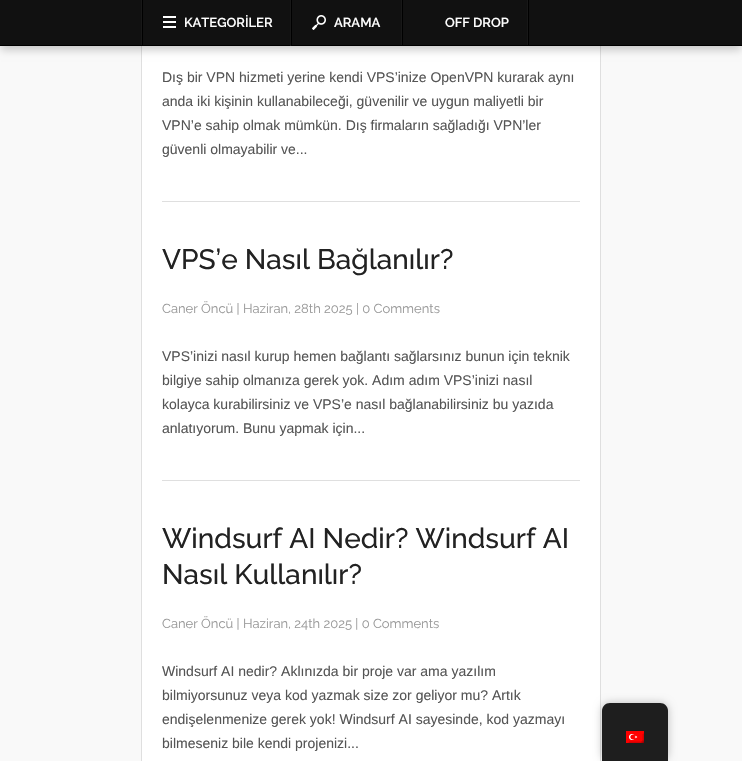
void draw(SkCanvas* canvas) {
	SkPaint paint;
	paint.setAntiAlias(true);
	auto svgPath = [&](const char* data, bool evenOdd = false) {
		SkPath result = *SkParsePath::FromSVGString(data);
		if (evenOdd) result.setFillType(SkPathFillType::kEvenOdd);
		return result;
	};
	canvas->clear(0xfff9f9f9);
	paint.setColor(0xffffffff);
	canvas->drawRect(SkRect::MakeXYWH(142, 46, 458, 715), paint);
	paint.setStroke(true);
	paint.setStrokeWidth(1);
	paint.setColor(0xffdfdfdf);
	canvas->drawRect(SkRect::MakeXYWH(141.5, -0.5, 459, 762), paint);
	paint.setStroke(false);
	paint.setColor(0x33000000);
	paint.setMaskFilter(SkMaskFilter::MakeBlur(kNormal_SkBlurStyle, 4));
	canvas->drawRect(SkRect::MakeXYWH(1, 6, 740, 44), paint);
	paint.setMaskFilter(nullptr);
	paint.setColor(0xff111111);
	canvas->drawRect(SkRect::MakeXYWH(0, 0, 742, 45), paint);
	paint.setColor(0xff000000);
	canvas->drawRect(SkRect::MakeXYWH(0, 45, 742, 1), paint);
	canvas->drawImageRect(SkImages::DeferredFromEncodedData(SkData::MakeFromFileName("img1.png")), SkRect::MakeXYWH(290, 0, 2, 46), SkSamplingOptions());
	canvas->drawImageRect(SkImages::DeferredFromEncodedData(SkData::MakeFromFileName("img2.png")), SkRect::MakeXYWH(141, 0, 2, 45), SkSamplingOptions());
	canvas->drawImageRect(SkImages::DeferredFromEncodedData(SkData::MakeFromFileName("img3.png")), SkRect::MakeXYWH(163, 16, 13, 12), SkSamplingOptions());
	SkFont f1(fontMgr->matchFamilyStyle("Raleway", SkFontStyle(600, SkFontStyle::kNormal_Width, SkFontStyle::kUpright_Slant)), 13);
	f1.setSubpixel(true);
	paint.setColor(0xffffffff);
	canvas->drawString("KATEGORİLER", 184, 27, f1, paint);
	canvas->drawImageRect(SkImages::DeferredFromEncodedData(SkData::MakeFromFileName("img2.png")), SkRect::MakeXYWH(527, 0, 2, 45), SkSamplingOptions());
	canvas->drawImageRect(SkImages::DeferredFromEncodedData(SkData::MakeFromFileName("img4.png")), SkRect::MakeXYWH(312, 15, 14, 15), SkSamplingOptions());
	canvas->drawString("ARAMA", 334, 27, f1, paint);
	canvas->drawImageRect(SkImages::DeferredFromEncodedData(SkData::MakeFromFileName("img2.png")), SkRect::MakeXYWH(401, 0, 2, 45), SkSamplingOptions());
	canvas->drawString("OFF DROP", 445, 27, f1, paint);
	paint.setColor(0xffdfdfdf);
	canvas->drawRect(SkRect::MakeXYWH(162, 201, 418, 1), paint);
	SkFont f2(fontMgr->matchFamilyStyle("Liberation Sans", SkFontStyle::Normal()), 14);
	f2.setSubpixel(true);
	paint.setColor(0xff555555);
	canvas->drawString("Dış bir VPN hizmeti yerine kendi VPS’inize OpenVPN kurarak aynı", 162, 82, f2, paint);
	canvas->drawString("anda iki kişinin kullanabileceği, güvenilir ve uygun maliyetli bir", 162, 106, f2, paint);
	canvas->drawString("VPN’e sahip olmak mümkün. Dış firmaların sağladığı VPN’ler", 162, 130, f2, paint);
	canvas->drawString("güvenli olmayabilir ve...", 162, 154, f2, paint);
	paint.setColor(0xffdfdfdf);
	canvas->drawRect(SkRect::MakeXYWH(162, 480, 418, 1), paint);
	SkFont f3(fontMgr->matchFamilyStyle("Raleway", SkFontStyle(500, SkFontStyle::kNormal_Width, SkFontStyle::kUpright_Slant)), 28);
	f3.setSubpixel(true);
	paint.setColor(0xff222222);
	canvas->drawString("VPS’e Nasıl Bağlanılır?", 162, 269, f3, paint);
	SkFont f4(fontMgr->matchFamilyStyle("Raleway", SkFontStyle::Normal()), 13);
	f4.setSubpixel(true);
	paint.setColor(0xff999999);
	canvas->drawString("Caner Öncü | Haziran, 28th 2025 | 0 Comments", 162, 313, f4, paint);
	paint.setColor(0xff555555);
	canvas->drawString("VPS’inizi nasıl kurup hemen bağlantı sağlarsınız bunun için teknik", 162, 361, f2, paint);
	canvas->drawString("bilgiye sahip olmanıza gerek yok. Adım adım VPS’inizi nasıl", 162, 385, f2, paint);
	canvas->drawString("kolayca kurabilirsiniz ve VPS’e nasıl bağlanabilirsiniz bu yazıda", 162, 409, f2, paint);
	canvas->drawString("anlatıyorum. Bunu yapmak için...", 162, 433, f2, paint);
	paint.setColor(0xff222222);
	canvas->drawString("Windsurf AI Nedir? Windsurf AI", 162, 548, f3, paint);
	canvas->drawString("Nasıl Kullanılır?", 162, 584, f3, paint);
	paint.setColor(0xff999999);
	canvas->drawString("Caner Öncü | Haziran, 24th 2025 | 0 Comments", 162, 628, f4, paint);
	paint.setColor(0xff555555);
	canvas->drawString("Windsurf AI nedir? Aklınızda bir proje var ama yazılım", 162, 676, f2, paint);
	canvas->drawString("bilmiyorsunuz veya kod yazmak size zor geliyor mu? Artık", 162, 700, f2, paint);
	canvas->drawString("endişelenmenize gerek yok! Windsurf AI sayesinde, kod yazmayı", 162, 724, f2, paint);
	canvas->drawString("bilmeseniz bile kendi projenizi...", 162, 748, f2, paint);
	paint.setColor(0x40000000);
	paint.setMaskFilter(SkMaskFilter::MakeBlur(kNormal_SkBlurStyle, 4));
	canvas->drawRoundRect(SkRect::MakeXYWH(602, 703, 66, 58), 8, 8, paint);
	paint.setMaskFilter(nullptr);
	paint.setColor(0xff1e1e1e);
	canvas->drawPath(svgPath("M610 703H660C664.5 703 668 706.5 668 711V761H602V711C602 706.5 605.5 703 610 703Z"), paint);
	canvas->drawImageRect(SkImages::DeferredFromEncodedData(SkData::MakeFromFileName("img5.png")), SkRect::MakeXYWH(626, 731, 18, 12), SkSamplingOptions());
}
